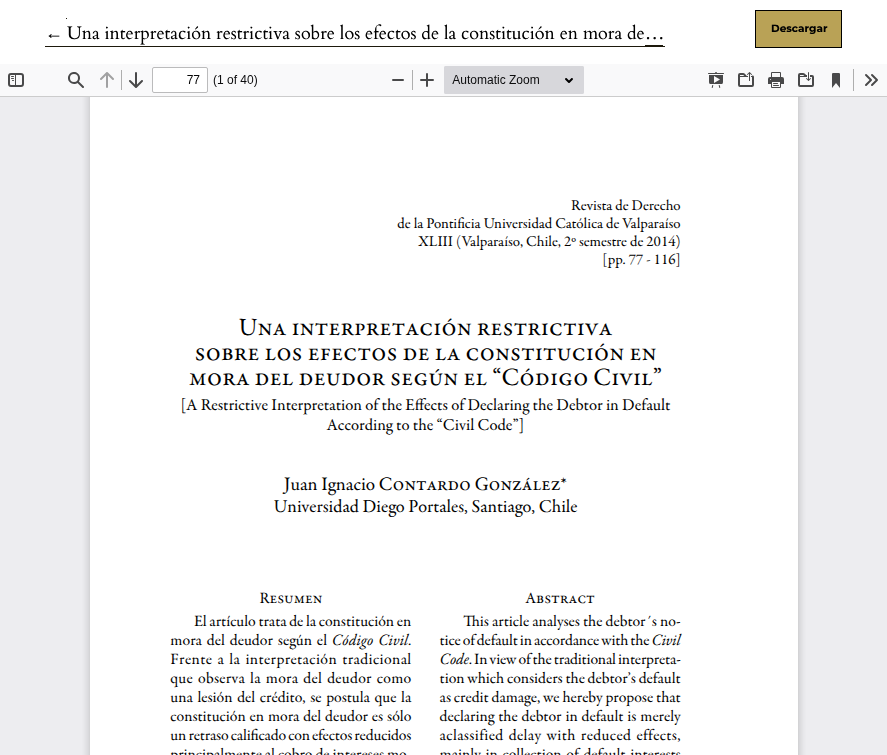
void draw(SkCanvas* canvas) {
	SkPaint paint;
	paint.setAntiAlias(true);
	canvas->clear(0xffffffff);
	SkFont f1(fontMgr->matchFamilyStyle("Liberation Serif", SkFontStyle::Normal()), 18);
	f1.setSubpixel(true);
	paint.setColor(0xff000000);
	canvas->drawString("←", 45, 39, f1, paint);
	paint.setColor(0xff1d190c);
	canvas->drawRect(SkRect::MakeXYWH(45, 46, 620, 1), paint);
	SkFont f2(fontMgr->matchFamilyStyle("Cardo", SkFontStyle::Normal()), 18);
	f2.setSubpixel(true);
	paint.setColor(0xff000000);
	canvas->drawString("Una interpretación restrictiva sobre los efectos de la constitución en mora de…", 67, 39, f2, paint);
	paint.setColor(0xff1d190c);
	canvas->drawRect(SkRect::MakeXYWH(66, 18, 1, 1), paint);
	canvas->drawRect(SkRect::MakeXYWH(645, 45, 18, 1), paint);
	paint.setColor(0xffb9a256);
	canvas->drawRect(SkRect::MakeXYWH(755.5, 10.5, 86, 37), paint);
	paint.setStroke(true);
	paint.setStrokeWidth(1);
	paint.setColor(0xff000000);
	canvas->drawRect(SkRect::MakeXYWH(755.5, 10.5, 86, 37), paint);
	SkFont f3(fontMgr->matchFamilyStyle("Montserrat", SkFontStyle::Bold()), 10.5);
	f3.setSubpixel(true);
	paint.setStroke(false);
	canvas->drawString("Descargar", 771, 32, f3, paint);
	canvas->drawImageRect(SkImages::DeferredFromEncodedData(SkData::MakeFromFileName("img1.png")), SkRect::MakeXYWH(0, 64, 887, 691), SkSamplingOptions());
}
